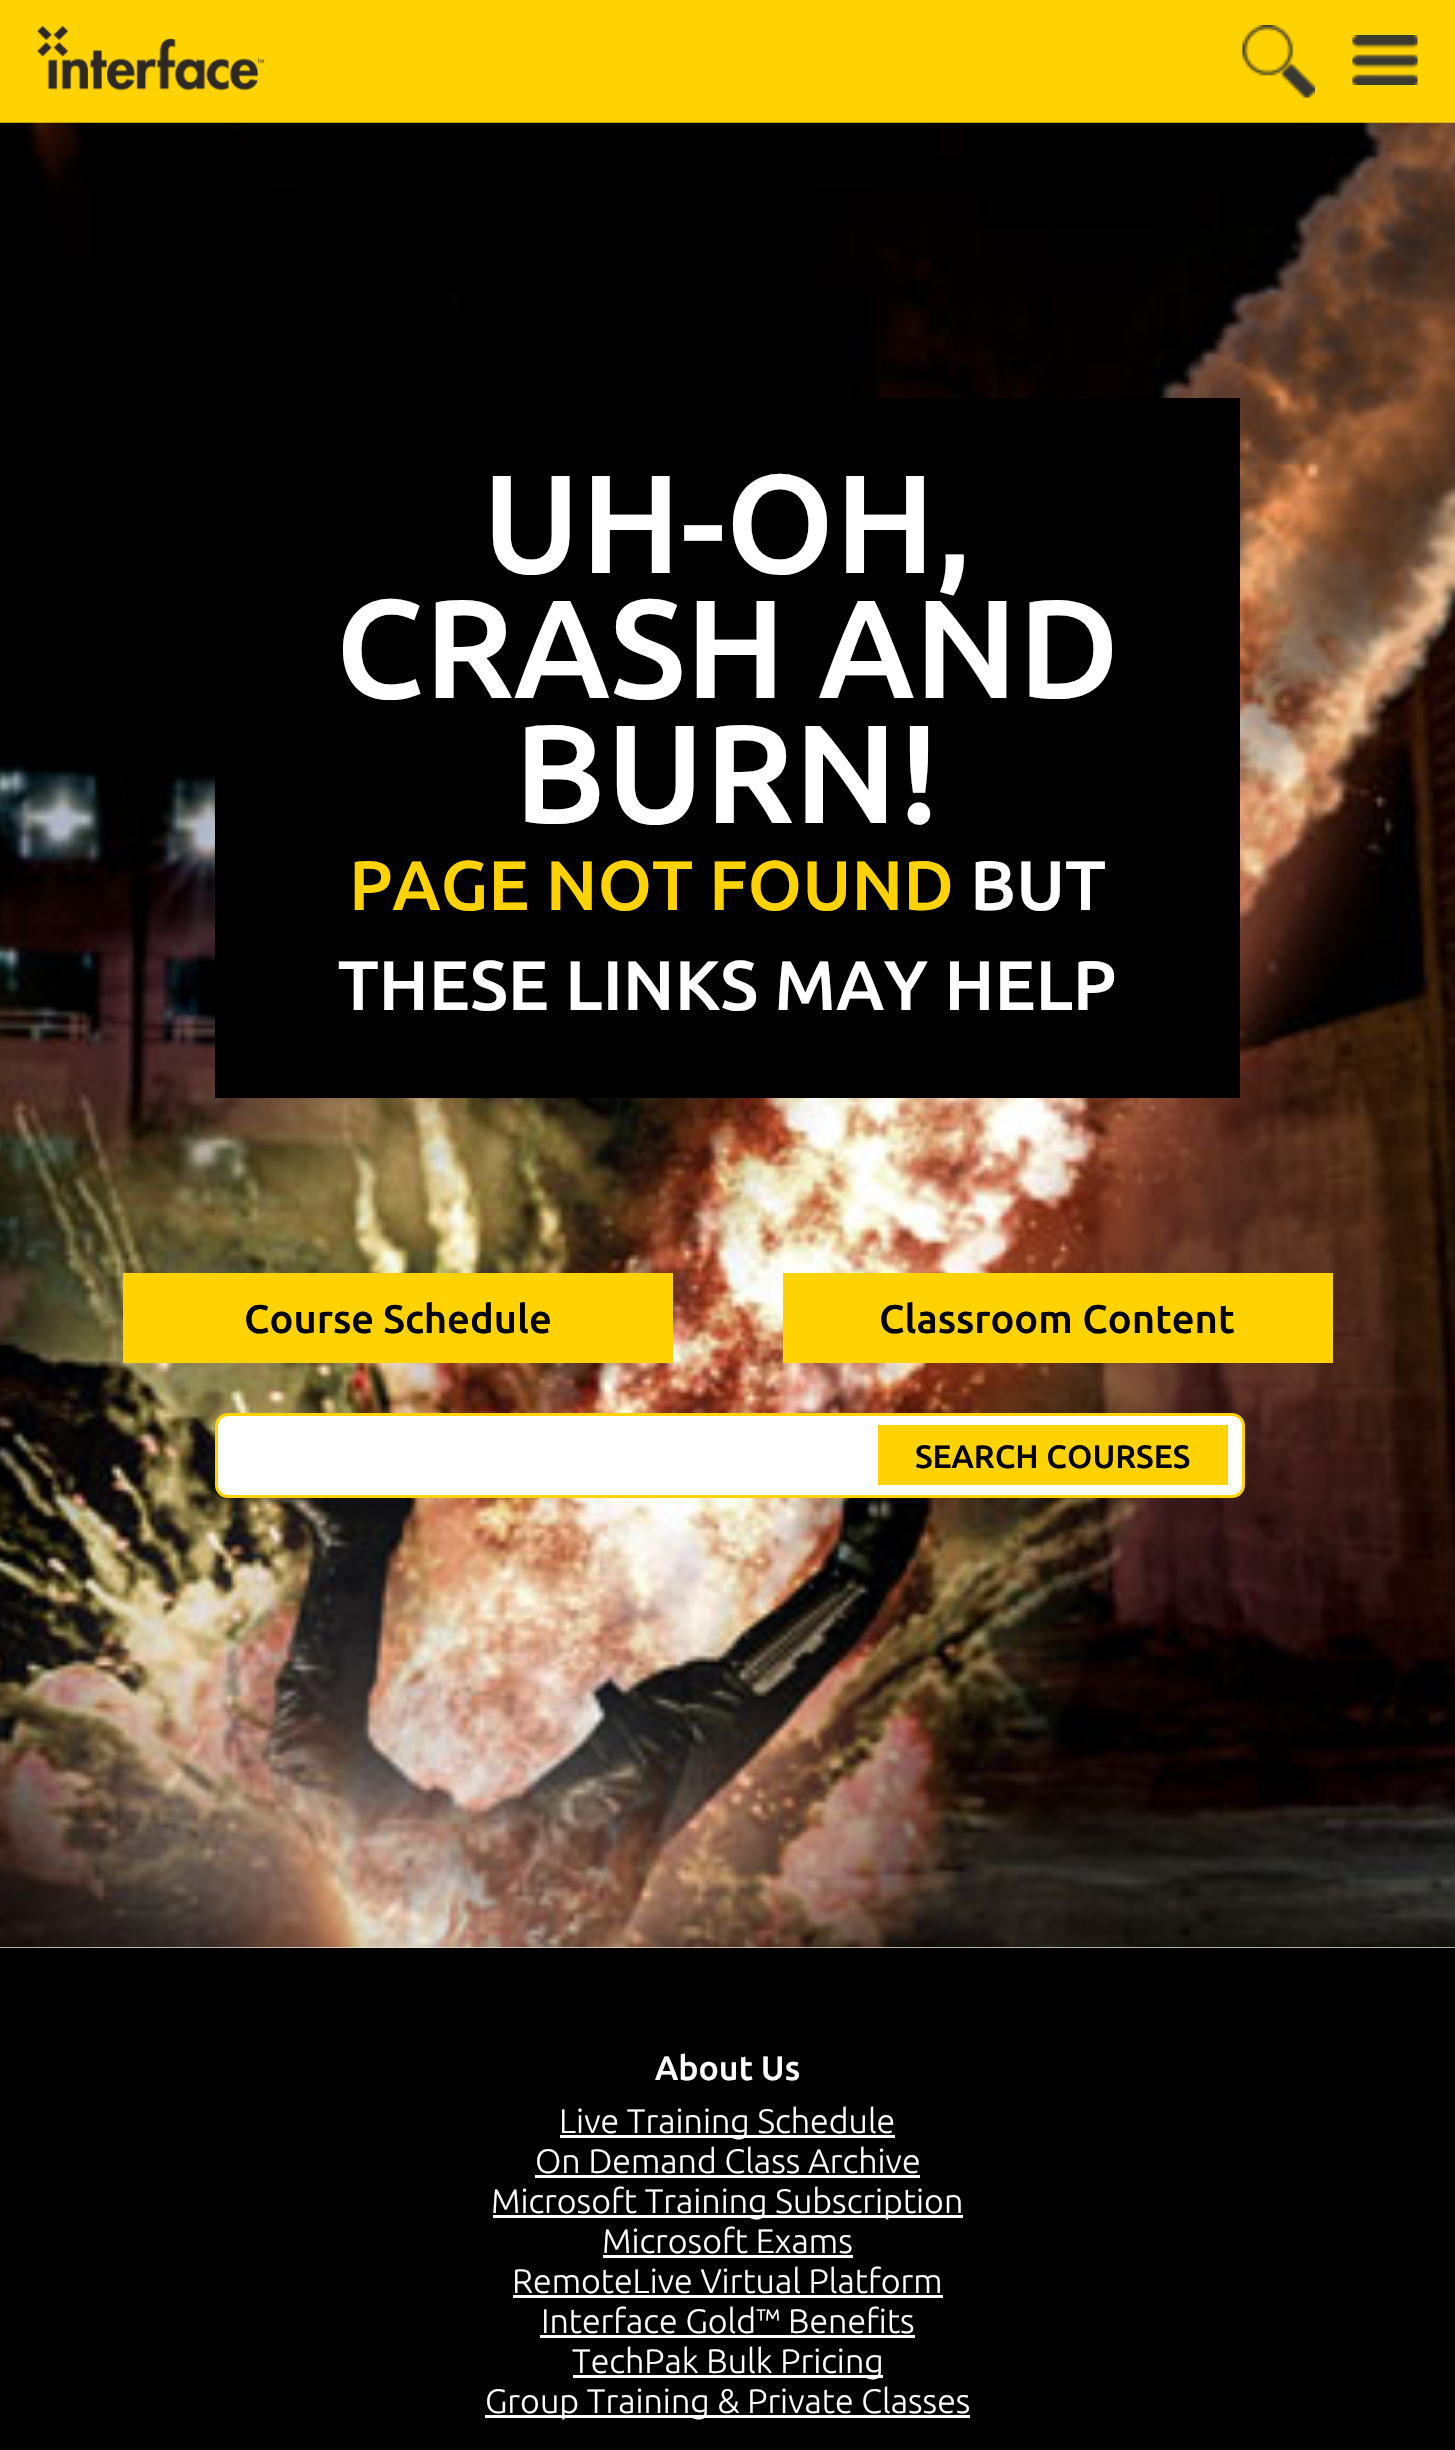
void draw(SkCanvas* canvas) {
	SkPaint paint;
	paint.setAntiAlias(true);
	canvas->clear(0xffffd202);
	canvas->drawImageRect(SkImages::DeferredFromEncodedData(SkData::MakeFromFileName("img1.png")), SkRect::MakeXYWH(37, 26, 228, 65), SkSamplingOptions());
	canvas->drawImageRect(SkImages::DeferredFromEncodedData(SkData::MakeFromFileName("img2.png")), SkRect::MakeXYWH(1242, 25, 73, 73), SkSamplingOptions());
	canvas->drawImageRect(SkImages::DeferredFromEncodedData(SkData::MakeFromFileName("img3.png")), SkRect::MakeXYWH(1352, 35, 66, 50), SkSamplingOptions());
	paint.setColor(0xffeae8da);
	canvas->drawRect(SkRect::MakeXYWH(0, 1947, 1455, 1), paint);
	canvas->drawImageRect(SkImages::DeferredFromEncodedData(SkData::MakeFromFileName("img4.png")), SkRect::MakeXYWH(0, 122, 1455, 1826), SkSamplingOptions());
	paint.setColor(0xff000000);
	canvas->drawRect(SkRect::MakeXYWH(215, 398, 1025, 700), paint);
	SkFont f1(fontMgr->matchFamilyStyle("Ubuntu", SkFontStyle(500, SkFontStyle::kNormal_Width, SkFontStyle::kUpright_Slant)), 140);
	f1.setSubpixel(true);
	paint.setColor(0xffffffff);
	canvas->drawString("UH-OH,", 482, 573, f1, paint);
	canvas->drawString("CRASH AND", 335, 698, f1, paint);
	canvas->drawString("BURN!", 514, 823, f1, paint);
	SkFont f2(fontMgr->matchFamilyStyle("Ubuntu", SkFontStyle(500, SkFontStyle::kNormal_Width, SkFontStyle::kUpright_Slant)), 70);
	f2.setSubpixel(true);
	paint.setColor(0xffffd202);
	canvas->drawString("PAGE NOT FOUND", 349, 910, f2, paint);
	paint.setColor(0xffffffff);
	canvas->drawString("BUT", 970, 910, f2, paint);
	canvas->drawString("THESE LINKS MAY HELP", 338, 1010, f2, paint);
	paint.setColor(0xffffd202);
	canvas->drawRect(SkRect::MakeXYWH(123, 1273, 550, 90), paint);
	SkFont f3(fontMgr->matchFamilyStyle("Ubuntu", SkFontStyle(500, SkFontStyle::kNormal_Width, SkFontStyle::kUpright_Slant)), 40);
	f3.setSubpixel(true);
	paint.setColor(0xff000000);
	canvas->drawString("Course Schedule", 244, 1333, f3, paint);
	paint.setColor(0xffffd202);
	canvas->drawRect(SkRect::MakeXYWH(783, 1273, 550, 90), paint);
	paint.setColor(0xff000000);
	canvas->drawString("Classroom Content", 879, 1333, f3, paint);
	paint.setColor(0xffffffff);
	canvas->drawRoundRect(SkRect::MakeXYWH(216.5, 1414.5, 1027, 82), 11.5, 11.5, paint);
	paint.setStroke(true);
	paint.setStrokeWidth(3);
	paint.setColor(0xffffd202);
	canvas->drawRoundRect(SkRect::MakeXYWH(216.5, 1414.5, 1027, 82), 11.5, 11.5, paint);
	paint.setStroke(false);
	canvas->drawRect(SkRect::MakeXYWH(878, 1425, 350, 60), paint);
	SkFont f4(fontMgr->matchFamilyStyle("Ubuntu", SkFontStyle(500, SkFontStyle::kNormal_Width, SkFontStyle::kUpright_Slant)), 32.5);
	f4.setSubpixel(true);
	paint.setColor(0xff000000);
	canvas->drawString("SEARCH COURSES", 915, 1468, f4, paint);
	canvas->drawRect(SkRect::MakeXYWH(0, 1948, 1455, 502), paint);
	SkFont f5(fontMgr->matchFamilyStyle("Ubuntu", SkFontStyle(500, SkFontStyle::kNormal_Width, SkFontStyle::kUpright_Slant)), 34);
	f5.setSubpixel(true);
	paint.setColor(0xffffffff);
	canvas->drawString("About Us", 655, 2080, f5, paint);
	canvas->drawRect(SkRect::MakeXYWH(560, 2135, 335, 3), paint);
	SkFont f6(fontMgr->matchFamilyStyle("Ubuntu", SkFontStyle(300, SkFontStyle::kNormal_Width, SkFontStyle::kUpright_Slant)), 34);
	f6.setSubpixel(true);
	canvas->drawString("Live Training Schedule", 559, 2133, f6, paint);
	canvas->drawString("On Demand Class Archive", 535, 2173, f6, paint);
	canvas->drawRect(SkRect::MakeXYWH(535, 2175, 385, 3), paint);
	canvas->drawRect(SkRect::MakeXYWH(493, 2215, 470, 3), paint);
	canvas->drawString("Microsoft Training Subscription", 491, 2213, f6, paint);
	canvas->drawString("Microsoft Exams", 602, 2253, f6, paint);
	canvas->drawRect(SkRect::MakeXYWH(603, 2255, 250, 3), paint);
	canvas->drawString("RemoteLive Virtual Platform", 512, 2293, f6, paint);
	canvas->drawRect(SkRect::MakeXYWH(513, 2295, 430, 3), paint);
	canvas->drawString("Interface Gold™ Benefits", 541, 2333, f6, paint);
	canvas->drawRect(SkRect::MakeXYWH(540, 2335, 375, 3), paint);
	canvas->drawRect(SkRect::MakeXYWH(573, 2375, 310, 3), paint);
	canvas->drawString("TechPak Bulk Pricing", 572, 2373, f6, paint);
	canvas->drawRect(SkRect::MakeXYWH(485, 2415, 485, 3), paint);
	canvas->drawString("Group Training & Private Classes", 485, 2413, f6, paint);
}
